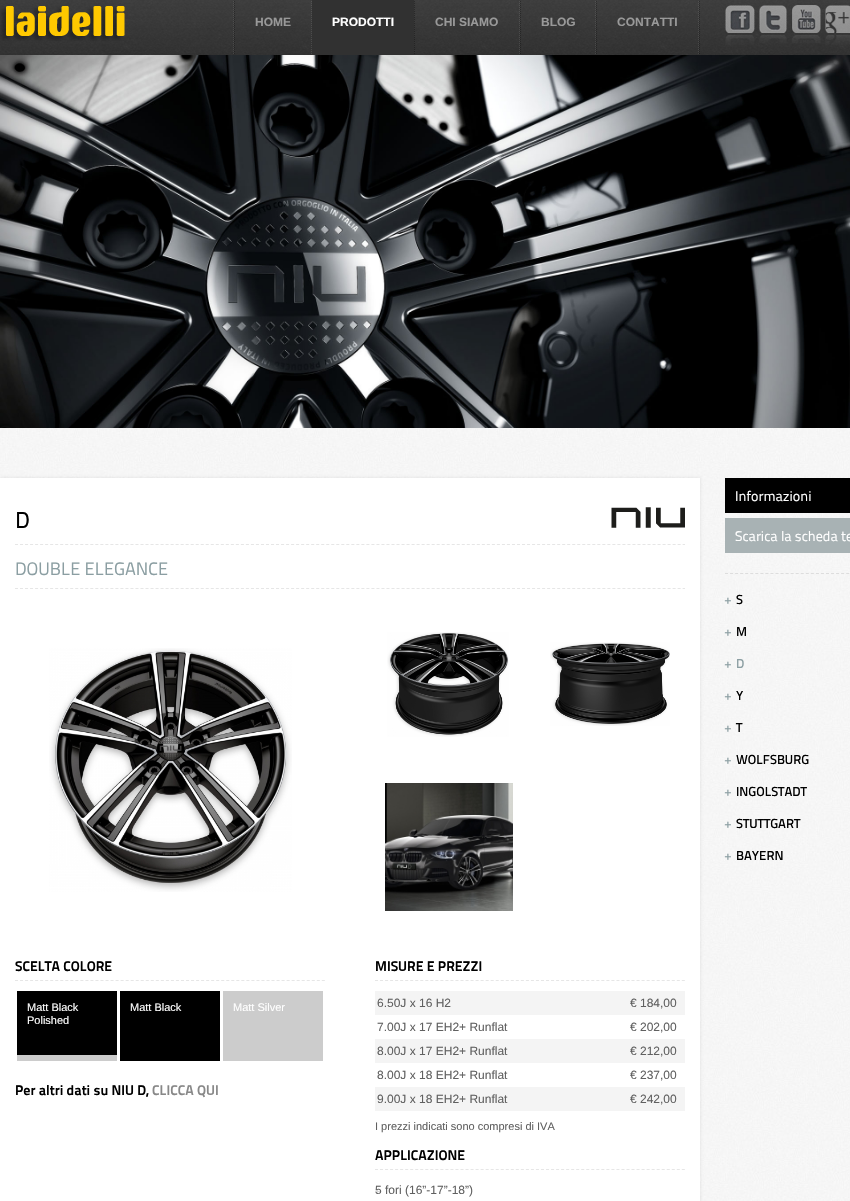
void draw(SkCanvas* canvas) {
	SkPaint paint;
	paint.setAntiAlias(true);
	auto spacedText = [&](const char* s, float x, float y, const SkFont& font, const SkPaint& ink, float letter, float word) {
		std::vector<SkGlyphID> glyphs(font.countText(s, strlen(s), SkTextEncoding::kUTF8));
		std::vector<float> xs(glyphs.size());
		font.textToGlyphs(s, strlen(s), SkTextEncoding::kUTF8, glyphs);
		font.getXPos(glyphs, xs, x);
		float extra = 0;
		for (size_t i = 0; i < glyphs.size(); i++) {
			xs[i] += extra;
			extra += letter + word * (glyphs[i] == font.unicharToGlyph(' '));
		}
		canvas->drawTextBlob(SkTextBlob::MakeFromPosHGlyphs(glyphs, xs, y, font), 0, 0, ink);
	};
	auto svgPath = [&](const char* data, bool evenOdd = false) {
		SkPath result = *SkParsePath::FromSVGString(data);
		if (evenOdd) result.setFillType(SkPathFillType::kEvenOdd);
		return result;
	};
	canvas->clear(0xffffffff);
	canvas->drawImageRect(SkImages::DeferredFromEncodedData(SkData::MakeFromFileName("img1.png")), SkRect::MakeXYWH(0, 428, 850, 773), SkSamplingOptions());
	{
		const SkColor colors[] = {0xff3d3d3d, 0xff525252};
		const float stops[] = {0, 1};
		const SkPoint ends[] = {{0, 55}, {0, -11}};
		paint.setShader(SkGradientShader::MakeLinear(ends, colors, stops, 2, SkTileMode::kClamp));
		paint.setAlpha(255);
	}
	canvas->drawRect(SkRect::MakeXYWH(0, 0, 850, 55), paint);
	canvas->drawImageRect(SkImages::DeferredFromEncodedData(SkData::MakeFromFileName("img2.png")), SkRect::MakeXYWH(0, 0, 850, 55), SkSamplingOptions());
	canvas->drawImageRect(SkImages::DeferredFromEncodedData(SkData::MakeFromFileName("img3.png")), SkRect::MakeXYWH(0, 6, 125, 35), SkSamplingOptions());
	paint.setStroke(true);
	paint.setStrokeWidth(1);
	paint.setShader(nullptr);
	paint.setColor(0x4d000000);
	paint.setPathEffect(SkDashPathEffect::Make({{1, 1}}, 0));
	canvas->drawPath(svgPath("M699.5-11V55"), paint);
	paint.setPathEffect(nullptr);
	paint.setColor(0x1affffff);
	paint.setPathEffect(SkDashPathEffect::Make({{1, 1}}, 0));
	canvas->drawPath(svgPath("M233.5-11V55"), paint);
	paint.setPathEffect(nullptr);
	paint.setPathEffect(SkDashPathEffect::Make({{1, 1}}, 0));
	canvas->drawPath(svgPath("M311.5-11V55"), paint);
	paint.setPathEffect(nullptr);
	paint.setColor(0x4d000000);
	paint.setPathEffect(SkDashPathEffect::Make({{1, 1}}, 0));
	canvas->drawPath(svgPath("M234.5-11V55"), paint);
	paint.setPathEffect(nullptr);
	SkFont f1(fontMgr->matchFamilyStyle("Liberation Sans", SkFontStyle::Bold()), 12);
	f1.setSubpixel(true);
	paint.setStroke(false);
	paint.setColor(0xff999999);
	canvas->drawString("HOME", 255, 26, f1, paint);
	paint.setColor(0xff313131);
	canvas->drawRect(SkRect::MakeXYWH(312, 0, 102, 55), paint);
	paint.setColor(0xffffffff);
	canvas->drawString("PRODOTTI", 332, 26, f1, paint);
	paint.setStroke(true);
	paint.setColor(0x1affffff);
	paint.setPathEffect(SkDashPathEffect::Make({{1, 1}}, 0));
	canvas->drawPath(svgPath("M519.5-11V55"), paint);
	paint.setPathEffect(nullptr);
	paint.setColor(0x4d000000);
	paint.setPathEffect(SkDashPathEffect::Make({{1, 1}}, 0));
	canvas->drawPath(svgPath("M414.5-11V55"), paint);
	paint.setPathEffect(nullptr);
	paint.setStroke(false);
	paint.setColor(0xff999999);
	canvas->drawString("CHI SIAMO", 435, 26, f1, paint);
	paint.setStroke(true);
	paint.setColor(0x1affffff);
	paint.setPathEffect(SkDashPathEffect::Make({{1, 1}}, 0));
	canvas->drawPath(svgPath("M595.5-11V55"), paint);
	paint.setPathEffect(nullptr);
	paint.setColor(0x4d000000);
	paint.setPathEffect(SkDashPathEffect::Make({{1, 1}}, 0));
	canvas->drawPath(svgPath("M520.5-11V55"), paint);
	paint.setPathEffect(nullptr);
	paint.setStroke(false);
	paint.setColor(0xff999999);
	canvas->drawString("BLOG", 541, 26, f1, paint);
	paint.setStroke(true);
	paint.setColor(0x1affffff);
	paint.setPathEffect(SkDashPathEffect::Make({{1, 1}}, 0));
	canvas->drawPath(svgPath("M698.5-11V55"), paint);
	paint.setPathEffect(nullptr);
	paint.setColor(0x4d000000);
	paint.setPathEffect(SkDashPathEffect::Make({{1, 1}}, 0));
	canvas->drawPath(svgPath("M596.5-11V55"), paint);
	paint.setPathEffect(nullptr);
	paint.setStroke(false);
	paint.setColor(0xff999999);
	canvas->drawString("CONTATTI", 617, 26, f1, paint);
	canvas->drawImageRect(SkImages::DeferredFromEncodedData(SkData::MakeFromFileName("img4.png")), SkRect::MakeXYWH(725, 5, 30, 40), SkSamplingOptions());
	canvas->drawImageRect(SkImages::DeferredFromEncodedData(SkData::MakeFromFileName("img5.png")), SkRect::MakeXYWH(759, 5, 28, 38), SkSamplingOptions());
	canvas->drawImageRect(SkImages::DeferredFromEncodedData(SkData::MakeFromFileName("img6.png")), SkRect::MakeXYWH(791, 5, 30, 38), SkSamplingOptions());
	canvas->drawImageRect(SkImages::DeferredFromEncodedData(SkData::MakeFromFileName("img7.png")), SkRect::MakeXYWH(825, 5, 25, 40), SkSamplingOptions());
	canvas->drawImageRect(SkImages::DeferredFromEncodedData(SkData::MakeFromFileName("img8.png")), SkRect::MakeXYWH(0, 55, 850, 373), SkSamplingOptions());
	paint.setColor(0x1a000000);
	paint.setMaskFilter(SkMaskFilter::MakeBlur(kNormal_SkBlurStyle, 1.5));
	canvas->drawRect(SkRect::MakeXYWH(0, 478, 700, 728), paint);
	paint.setMaskFilter(nullptr);
	paint.setColor(0xffffffff);
	canvas->drawRect(SkRect::MakeXYWH(0, 478, 700, 723), paint);
	paint.setStroke(true);
	paint.setColor(0xffe6e6e6);
	paint.setPathEffect(SkDashPathEffect::Make({{3, 2.02f}}, 0));
	canvas->drawPath(svgPath("M15 544.5H685"), paint);
	paint.setPathEffect(nullptr);
	SkFont f2(fontMgr->matchFamilyStyle("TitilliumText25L", SkFontStyle::Bold()), 22);
	f2.setSubpixel(true);
	paint.setStroke(false);
	paint.setColor(0xff000000);
	spacedText("D", 15, 528, f2, paint, -1, 0);
	canvas->drawImageRect(SkImages::DeferredFromEncodedData(SkData::MakeFromFileName("img9.png")), SkRect::MakeXYWH(611, 507, 74, 21), SkSamplingOptions());
	paint.setStroke(true);
	paint.setColor(0xffe6e6e6);
	paint.setPathEffect(SkDashPathEffect::Make({{3, 2.02f}}, 0));
	canvas->drawPath(svgPath("M15 588.5H685"), paint);
	paint.setPathEffect(nullptr);
	SkFont f3(fontMgr->matchFamilyStyle("TitilliumText25L", SkFontStyle::Normal()), 18);
	f3.setSubpixel(true);
	paint.setStroke(false);
	paint.setColor(0xff8b9ea2);
	canvas->drawString("DOUBLE ELEGANCE", 15, 575, f3, paint);
	canvas->drawImageRect(SkImages::DeferredFromEncodedData(SkData::MakeFromFileName("img10.png")), SkRect::MakeXYWH(49, 648, 243, 244), SkSamplingOptions());
	canvas->drawImageRect(SkImages::DeferredFromEncodedData(SkData::MakeFromFileName("img11.png")), SkRect::MakeXYWH(387, 632, 122, 105), SkSamplingOptions());
	canvas->drawImageRect(SkImages::DeferredFromEncodedData(SkData::MakeFromFileName("img12.png")), SkRect::MakeXYWH(550, 642, 120, 84), SkSamplingOptions());
	canvas->drawImageRect(SkImages::DeferredFromEncodedData(SkData::MakeFromFileName("img13.png")), SkRect::MakeXYWH(385, 783, 128, 128), SkSamplingOptions());
	paint.setStroke(true);
	paint.setColor(0xffe6e6e6);
	paint.setPathEffect(SkDashPathEffect::Make({{3, 2.03f}}, 0));
	canvas->drawPath(svgPath("M15 980.5H325"), paint);
	paint.setPathEffect(nullptr);
	SkFont f4(fontMgr->matchFamilyStyle("TitilliumText25L", SkFontStyle(800, SkFontStyle::kNormal_Width, SkFontStyle::kUpright_Slant)), 14);
	f4.setSubpixel(true);
	paint.setStroke(false);
	paint.setColor(0xff000000);
	canvas->drawString("SCELTA COLORE", 15, 971, f4, paint);
	canvas->drawRect(SkRect::MakeXYWH(17, 991, 100, 64), paint);
	paint.setColor(0xffcccccc);
	canvas->drawRect(SkRect::MakeXYWH(17, 1055, 100, 6), paint);
	SkFont f5(fontMgr->matchFamilyStyle("Liberation Sans", SkFontStyle::Normal()), 11);
	f5.setSubpixel(true);
	paint.setColor(0xffffffff);
	canvas->drawString("Matt Black", 27, 1011, f5, paint);
	canvas->drawString("Polished", 27, 1024, f5, paint);
	paint.setColor(0xff000000);
	canvas->drawRect(SkRect::MakeXYWH(120, 991, 100, 70), paint);
	paint.setColor(0xffffffff);
	canvas->drawString("Matt Black", 130, 1011, f5, paint);
	paint.setColor(0xffcccccc);
	canvas->drawRect(SkRect::MakeXYWH(223, 991, 100, 70), paint);
	paint.setColor(0xffffffff);
	canvas->drawString("Matt Silver", 233, 1011, f5, paint);
	paint.setColor(0xff000000);
	canvas->drawString("Per altri dati su NIU D,", 15, 1095, f4, paint);
	paint.setColor(0xff888888);
	canvas->drawString("CLICCA QUI", 152, 1095, f4, paint);
	paint.setStroke(true);
	paint.setColor(0xffe6e6e6);
	paint.setPathEffect(SkDashPathEffect::Make({{3, 2.03f}}, 0));
	canvas->drawPath(svgPath("M375 980.5H685"), paint);
	paint.setPathEffect(nullptr);
	paint.setStroke(false);
	paint.setColor(0xff000000);
	canvas->drawString("MISURE E PREZZI", 375, 971, f4, paint);
	paint.setColor(0xfff4f4f4);
	canvas->drawRect(SkRect::MakeXYWH(375, 991, 310, 24), paint);
	SkFont f6(fontMgr->matchFamilyStyle("Liberation Sans", SkFontStyle::Normal()), 12);
	f6.setSubpixel(true);
	paint.setColor(0xff606060);
	canvas->drawString("6.50J x 16 H2", 377, 1007, f6, paint);
	canvas->drawString("€ 184,00", 630, 1007, f6, paint);
	canvas->drawString("7.00J x 17 EH2+ Runflat", 377, 1031, f6, paint);
	canvas->drawString("€ 202,00", 630, 1031, f6, paint);
	paint.setColor(0xfff4f4f4);
	canvas->drawRect(SkRect::MakeXYWH(375, 1039, 310, 24), paint);
	paint.setColor(0xff606060);
	canvas->drawString("8.00J x 17 EH2+ Runflat", 377, 1055, f6, paint);
	canvas->drawString("€ 212,00", 630, 1055, f6, paint);
	canvas->drawString("8.00J x 18 EH2+ Runflat", 377, 1079, f6, paint);
	canvas->drawString("€ 237,00", 630, 1079, f6, paint);
	paint.setColor(0xfff4f4f4);
	canvas->drawRect(SkRect::MakeXYWH(375, 1087, 310, 24), paint);
	paint.setColor(0xff606060);
	canvas->drawString("9.00J x 18 EH2+ Runflat", 377, 1103, f6, paint);
	canvas->drawString("€ 242,00", 630, 1103, f6, paint);
	canvas->drawString("I prezzi indicati sono compresi di IVA", 375, 1130, f5, paint);
	paint.setStroke(true);
	paint.setColor(0xffe6e6e6);
	paint.setPathEffect(SkDashPathEffect::Make({{3, 2.03f}}, 0));
	canvas->drawPath(svgPath("M375 1169.5H685"), paint);
	paint.setPathEffect(nullptr);
	paint.setStroke(false);
	paint.setColor(0xff000000);
	canvas->drawString("APPLICAZIONE", 375, 1160, f4, paint);
	canvas->drawImageRect(SkImages::DeferredFromEncodedData(SkData::MakeFromFileName("img14.png")), SkRect::MakeXYWH(375, 1189, 5, 5), SkSamplingOptions());
	paint.setColor(0xff606060);
	canvas->drawString("5 fori (16”-17”-18”)", 375, 1194, f6, paint);
	paint.setStroke(true);
	paint.setColor(0xffdddddd);
	paint.setPathEffect(SkDashPathEffect::Make({{3, 2.05f}}, 0));
	canvas->drawPath(svgPath("M725 573.5H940"), paint);
	paint.setPathEffect(nullptr);
	paint.setStroke(false);
	paint.setColor(0xff000000);
	canvas->drawRect(SkRect::MakeXYWH(725, 478, 125, 35), paint);
	SkFont f7(fontMgr->matchFamilyStyle("TitilliumText25L", SkFontStyle::Normal()), 14);
	f7.setSubpixel(true);
	paint.setColor(0xffffffff);
	canvas->drawString("Informazioni", 735, 501, f7, paint);
	paint.setColor(0xffa8b2b4);
	canvas->drawRect(SkRect::MakeXYWH(725, 518, 125, 35), paint);
	paint.setColor(0xffffffff);
	canvas->drawString("Scarica la scheda te", 735, 541, f7, paint);
	SkFont f8(fontMgr->matchFamilyStyle("TitilliumText25L", SkFontStyle(600, SkFontStyle::kNormal_Width, SkFontStyle::kUpright_Slant)), 12);
	f8.setSubpixel(true);
	paint.setColor(0xff8b9ea2);
	canvas->drawString("+", 725, 604, f8, paint);
	SkFont f9(fontMgr->matchFamilyStyle("TitilliumText25L", SkFontStyle(600, SkFontStyle::kNormal_Width, SkFontStyle::kUpright_Slant)), 13);
	f9.setSubpixel(true);
	paint.setColor(0xff000000);
	canvas->drawString("S", 736, 604, f9, paint);
	paint.setColor(0xff8b9ea2);
	canvas->drawString("+", 725, 636, f8, paint);
	paint.setColor(0xff000000);
	canvas->drawString("M", 736, 636, f9, paint);
	paint.setColor(0xff8b9ea2);
	canvas->drawString("+", 725, 668, f8, paint);
	canvas->drawString("D", 736, 668, f9, paint);
	canvas->drawString("+", 725, 700, f8, paint);
	paint.setColor(0xff000000);
	canvas->drawString("Y", 736, 700, f9, paint);
	paint.setColor(0xff8b9ea2);
	canvas->drawString("+", 725, 732, f8, paint);
	paint.setColor(0xff000000);
	canvas->drawString("T", 736, 732, f9, paint);
	paint.setColor(0xff8b9ea2);
	canvas->drawString("+", 725, 764, f8, paint);
	paint.setColor(0xff000000);
	canvas->drawString("WOLFSBURG", 736, 764, f9, paint);
	paint.setColor(0xff8b9ea2);
	canvas->drawString("+", 725, 796, f8, paint);
	paint.setColor(0xff000000);
	canvas->drawString("INGOLSTADT", 736, 796, f9, paint);
	paint.setColor(0xff8b9ea2);
	canvas->drawString("+", 725, 828, f8, paint);
	paint.setColor(0xff000000);
	canvas->drawString("STUTTGART", 736, 828, f9, paint);
	paint.setColor(0xff8b9ea2);
	canvas->drawString("+", 725, 860, f8, paint);
	paint.setColor(0xff000000);
	canvas->drawString("BAYERN", 736, 860, f9, paint);
}
